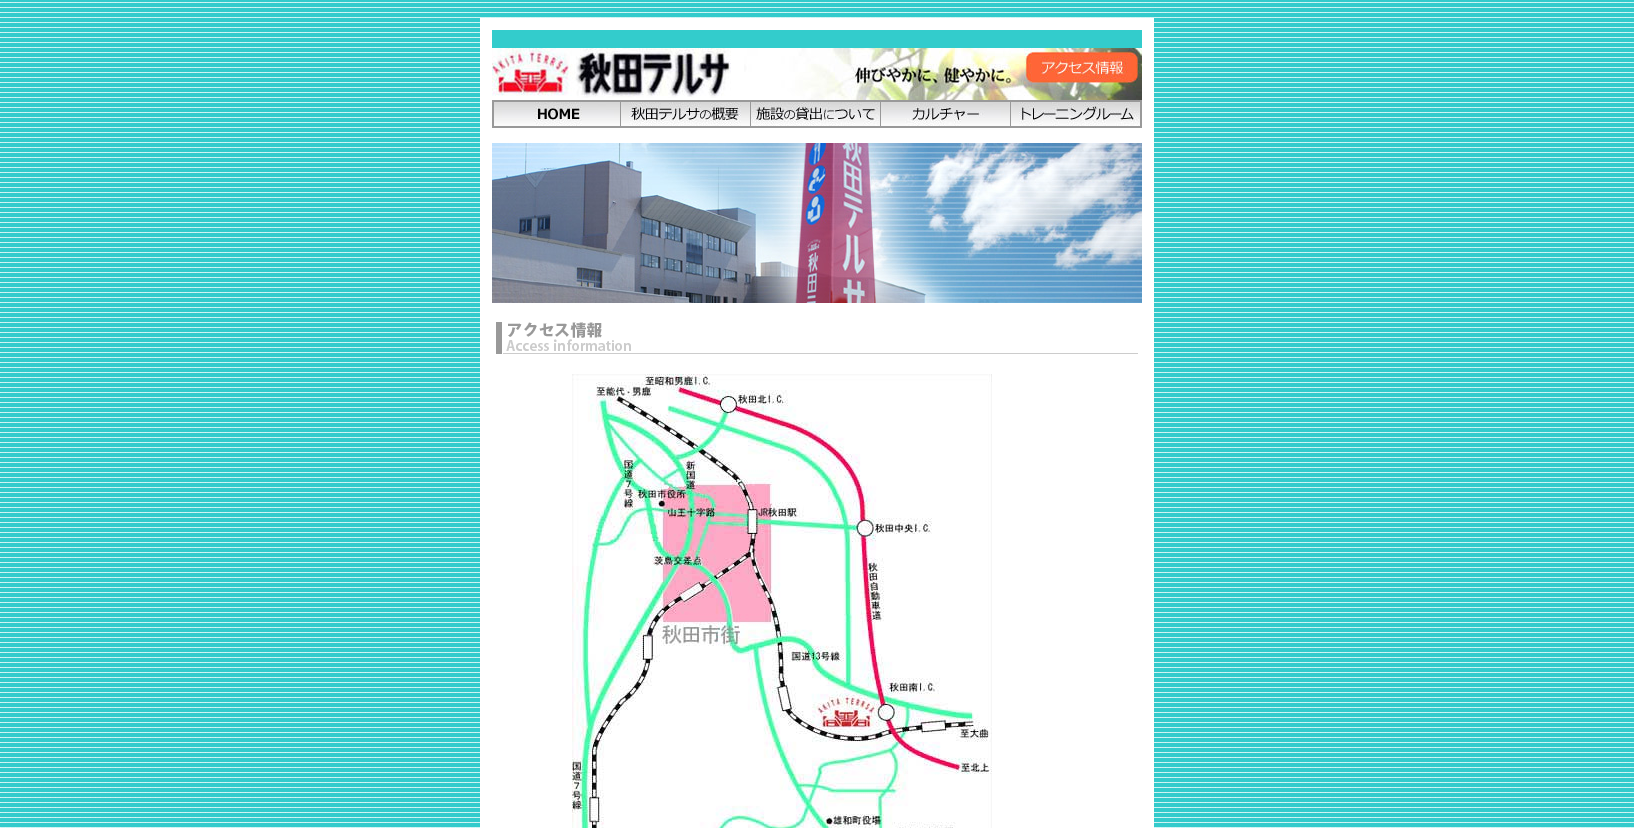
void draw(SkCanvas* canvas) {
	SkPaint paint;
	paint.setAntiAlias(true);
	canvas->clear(0xffffffff);
	canvas->drawImageRect(SkImages::DeferredFromEncodedData(SkData::MakeFromFileName("img1.png")), SkRect::MakeXYWH(0, 0, 1634, 828), SkSamplingOptions());
	paint.setColor(0xffffffff);
	canvas->drawRect(SkRect::MakeXYWH(480, 18, 674, 810), paint);
	paint.setColor(0xff33cccc);
	canvas->drawRect(SkRect::MakeXYWH(492, 30, 650, 18), paint);
	canvas->drawImageRect(SkImages::DeferredFromEncodedData(SkData::MakeFromFileName("img2.png")), SkRect::MakeXYWH(492, 48, 239, 50), SkSamplingOptions());
	canvas->drawImageRect(SkImages::DeferredFromEncodedData(SkData::MakeFromFileName("img3.png")), SkRect::MakeXYWH(744, 48, 280, 52), SkSamplingOptions());
	canvas->drawImageRect(SkImages::DeferredFromEncodedData(SkData::MakeFromFileName("img4.png")), SkRect::MakeXYWH(1024, 48, 118, 52), SkSamplingOptions());
	paint.setColor(0xff999999);
	canvas->drawRect(SkRect::MakeXYWH(492, 100, 650, 28), paint);
	canvas->drawImageRect(SkImages::DeferredFromEncodedData(SkData::MakeFromFileName("img5.png")), SkRect::MakeXYWH(494, 102, 126, 24), SkSamplingOptions());
	canvas->drawImageRect(SkImages::DeferredFromEncodedData(SkData::MakeFromFileName("img6.png")), SkRect::MakeXYWH(621, 102, 129, 24), SkSamplingOptions());
	canvas->drawImageRect(SkImages::DeferredFromEncodedData(SkData::MakeFromFileName("img7.png")), SkRect::MakeXYWH(751, 102, 129, 24), SkSamplingOptions());
	canvas->drawImageRect(SkImages::DeferredFromEncodedData(SkData::MakeFromFileName("img8.png")), SkRect::MakeXYWH(881, 102, 129, 24), SkSamplingOptions());
	canvas->drawImageRect(SkImages::DeferredFromEncodedData(SkData::MakeFromFileName("img9.png")), SkRect::MakeXYWH(1011, 102, 129, 24), SkSamplingOptions());
	canvas->drawImageRect(SkImages::DeferredFromEncodedData(SkData::MakeFromFileName("img10.png")), SkRect::MakeXYWH(492, 143, 650, 160), SkSamplingOptions());
	canvas->drawImageRect(SkImages::DeferredFromEncodedData(SkData::MakeFromFileName("img11.png")), SkRect::MakeXYWH(496, 322, 642, 32), SkSamplingOptions());
	canvas->drawImageRect(SkImages::DeferredFromEncodedData(SkData::MakeFromFileName("img12.png")), SkRect::MakeXYWH(572, 374, 420, 454), SkSamplingOptions());
}
